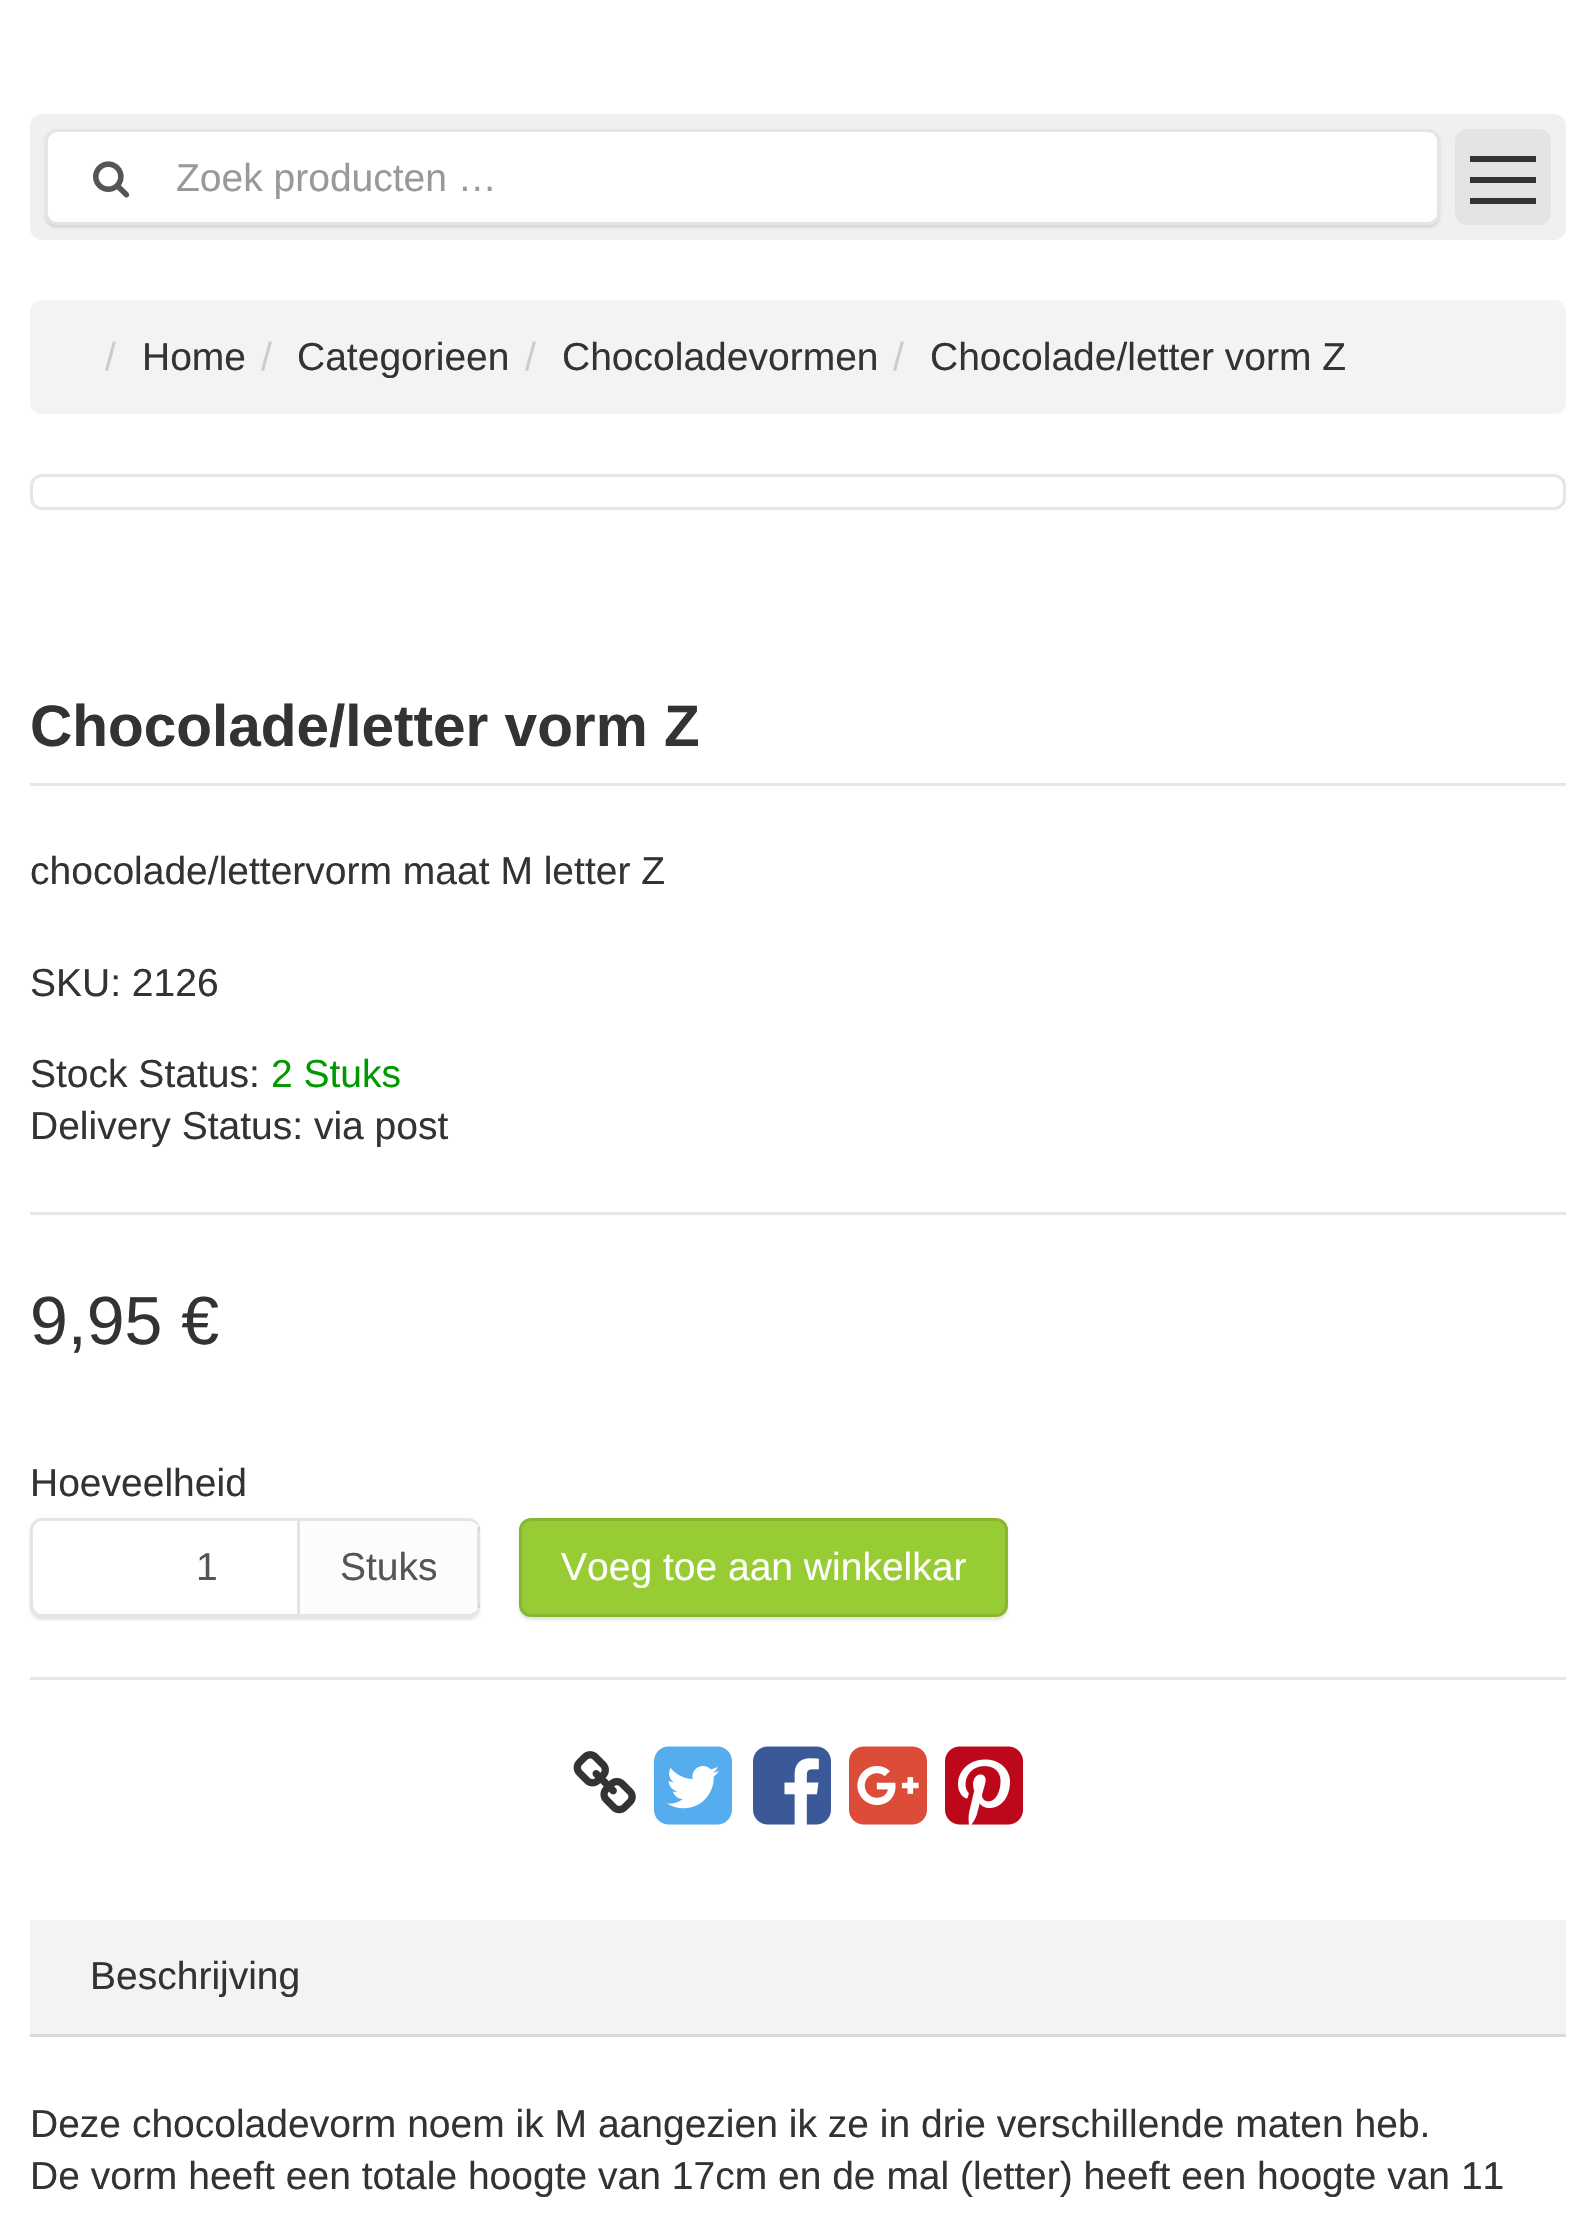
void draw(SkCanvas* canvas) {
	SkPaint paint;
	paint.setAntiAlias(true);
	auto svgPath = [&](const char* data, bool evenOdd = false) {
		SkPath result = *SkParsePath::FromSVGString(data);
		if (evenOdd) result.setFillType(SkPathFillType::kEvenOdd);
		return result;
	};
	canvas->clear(0xffffffff);
	paint.setColor(0xfff0f0f0);
	canvas->drawRoundRect(SkRect::MakeXYWH(30, 114, 1536, 126), 12, 12, paint);
	paint.setColor(0x1a000000);
	paint.setMaskFilter(SkMaskFilter::MakeBlur(kNormal_SkBlurStyle, 1.5));
	canvas->drawRoundRect(SkRect::MakeXYWH(45, 132, 1395, 96), 12, 12, paint);
	paint.setMaskFilter(nullptr);
	paint.setColor(0xffffffff);
	canvas->drawRoundRect(SkRect::MakeXYWH(45, 129, 1395, 96), 12, 12, paint);
	paint.setStroke(true);
	paint.setStrokeWidth(3);
	paint.setColor(0x1a000000);
	canvas->drawRoundRect(SkRect::MakeXYWH(46.5, 130.5, 1392, 93), 10.5, 10.5, paint);
	canvas->drawImageRect(SkImages::DeferredFromEncodedData(SkData::MakeFromFileName("img1.png")), SkRect::MakeXYWH(93, 161, 37, 37), SkSamplingOptions());
	SkFont f1(fontMgr->matchFamilyStyle("Liberation Sans", SkFontStyle::Normal()), 39);
	f1.setSubpixel(true);
	paint.setStroke(false);
	paint.setColor(0xff999999);
	canvas->drawString("Zoek producten …", 176, 191, f1, paint);
	paint.setColor(0xffe4e4e4);
	canvas->drawRoundRect(SkRect::MakeXYWH(1455, 129, 96, 96), 12, 12, paint);
	paint.setColor(0xff333333);
	canvas->drawRect(SkRect::MakeXYWH(1470, 156, 66, 6), paint);
	canvas->drawRect(SkRect::MakeXYWH(1470, 177, 66, 6), paint);
	canvas->drawRect(SkRect::MakeXYWH(1470, 198, 66, 6), paint);
	paint.setColor(0xfff3f3f3);
	canvas->drawRoundRect(SkRect::MakeXYWH(30, 300, 1536, 114), 12, 12, paint);
	paint.setColor(0xffcccccc);
	canvas->drawString("/", 105, 370, f1, paint);
	paint.setColor(0xff333333);
	canvas->drawString("Home", 142, 370, f1, paint);
	paint.setColor(0xffcccccc);
	canvas->drawString("/", 261, 370, f1, paint);
	paint.setColor(0xff333333);
	canvas->drawString("Categorieen", 297, 370, f1, paint);
	paint.setColor(0xffcccccc);
	canvas->drawString("/", 525, 370, f1, paint);
	paint.setColor(0xff333333);
	canvas->drawString("Chocoladevormen", 562, 370, f1, paint);
	paint.setColor(0xffcccccc);
	canvas->drawString("/", 893, 370, f1, paint);
	paint.setColor(0xff333333);
	canvas->drawString("Chocolade/letter vorm Z", 930, 370, f1, paint);
	paint.setStroke(true);
	paint.setColor(0xffe6e6e6);
	canvas->drawRoundRect(SkRect::MakeXYWH(31.5, 475.5, 1533, 33), 10.5, 10.5, paint);
	paint.setStroke(false);
	canvas->drawRect(SkRect::MakeXYWH(30, 783, 1536, 3), paint);
	SkFont f2(fontMgr->matchFamilyStyle("Liberation Sans", SkFontStyle::Bold()), 58.5);
	f2.setSubpixel(true);
	paint.setColor(0xff333333);
	canvas->drawString("Chocolade/letter vorm Z", 30, 746, f2, paint);
	canvas->drawString("chocolade/lettervorm maat M letter Z", 30, 884, f1, paint);
	canvas->drawString("SKU: 2126", 30, 996, f1, paint);
	canvas->drawString("Stock Status:", 30, 1087, f1, paint);
	paint.setColor(0xff009900);
	canvas->drawString("2 Stuks", 271, 1087, f1, paint);
	paint.setColor(0xff333333);
	canvas->drawString("Delivery Status: via post", 30, 1139, f1, paint);
	paint.setColor(0xffe6e6e6);
	canvas->drawRect(SkRect::MakeXYWH(30, 1212, 1536, 3), paint);
	SkFont f3(fontMgr->matchFamilyStyle("Liberation Sans", SkFontStyle::Normal()), 68);
	f3.setSubpixel(true);
	paint.setColor(0xff333333);
	canvas->drawString("9,95 €", 30, 1344, f3, paint);
	canvas->drawString("Hoeveelheid", 30, 1496, f1, paint);
	paint.setColor(0x1a000000);
	paint.setMaskFilter(SkMaskFilter::MakeBlur(kNormal_SkBlurStyle, 1.5));
	canvas->drawRoundRect(SkRect::MakeXYWH(30, 1521, 450, 99), 12, 12, paint);
	paint.setMaskFilter(nullptr);
	paint.setColor(0xffffffff);
	canvas->drawRoundRect(SkRect::MakeXYWH(30, 1518, 450, 99), 12, 12, paint);
	paint.setStroke(true);
	paint.setColor(0x1a000000);
	canvas->drawRoundRect(SkRect::MakeXYWH(31.5, 1519.5, 447, 96), 10.5, 10.5, paint);
	paint.setStroke(false);
	paint.setColor(0xff555555);
	canvas->drawString("1", 196, 1580, f1, paint);
	paint.setColor(0xfffcfcfc);
	canvas->drawPath(svgPath("M297 1521H468C474.5 1521 480 1526.5 480 1533V1602C480 1608.5 474.5 1614 468 1614H297Z"), paint);
	paint.setColor(0x1a000000);
	canvas->drawRect(SkRect::MakeXYWH(477, 1527, 3, 81), paint);
	paint.setColor(0xffe3e3e3);
	canvas->drawRect(SkRect::MakeXYWH(297, 1521, 3, 93), paint);
	paint.setColor(0xff555555);
	canvas->drawString("Stuks", 340, 1580, f1, paint);
	paint.setColor(0x1a000000);
	paint.setMaskFilter(SkMaskFilter::MakeBlur(kNormal_SkBlurStyle, 1.5));
	canvas->drawRoundRect(SkRect::MakeXYWH(519, 1521, 489, 99), 12, 12, paint);
	paint.setMaskFilter(nullptr);
	paint.setColor(0xff98cc34);
	canvas->drawRoundRect(SkRect::MakeXYWH(519, 1518, 489, 99), 12, 12, paint);
	paint.setStroke(true);
	paint.setColor(0x1a000000);
	canvas->drawRoundRect(SkRect::MakeXYWH(520.5, 1519.5, 486, 96), 10.5, 10.5, paint);
	paint.setStroke(false);
	paint.setColor(0xffffffff);
	canvas->drawString("Voeg toe aan winkelkar", 561, 1580, f1, paint);
	paint.setColor(0xffe6e6e6);
	canvas->drawRect(SkRect::MakeXYWH(30, 1677, 1536, 3), paint);
	canvas->drawImageRect(SkImages::DeferredFromEncodedData(SkData::MakeFromFileName("img2.png")), SkRect::MakeXYWH(573, 1751, 63, 63), SkSamplingOptions());
	canvas->drawImageRect(SkImages::DeferredFromEncodedData(SkData::MakeFromFileName("img3.png")), SkRect::MakeXYWH(654, 1746, 78, 79), SkSamplingOptions());
	canvas->drawImageRect(SkImages::DeferredFromEncodedData(SkData::MakeFromFileName("img4.png")), SkRect::MakeXYWH(753, 1746, 78, 79), SkSamplingOptions());
	canvas->drawImageRect(SkImages::DeferredFromEncodedData(SkData::MakeFromFileName("img5.png")), SkRect::MakeXYWH(849, 1746, 78, 79), SkSamplingOptions());
	canvas->drawImageRect(SkImages::DeferredFromEncodedData(SkData::MakeFromFileName("img6.png")), SkRect::MakeXYWH(945, 1746, 78, 79), SkSamplingOptions());
	paint.setColor(0xfff3f3f3);
	canvas->drawRect(SkRect::MakeXYWH(30, 1920, 1536, 114), paint);
	paint.setColor(0xffdbdbdb);
	canvas->drawRect(SkRect::MakeXYWH(30, 2034, 1536, 3), paint);
	paint.setColor(0xff333333);
	canvas->drawString("Beschrijving", 90, 1989, f1, paint);
	canvas->drawString("Deze chocoladevorm noem ik M aangezien ik ze in drie verschillende maten heb.", 30, 2137, f1, paint);
	canvas->drawString("De vorm heeft een totale hoogte van 17cm en de mal (letter) heeft een hoogte van 11", 30, 2189, f1, paint);
}
